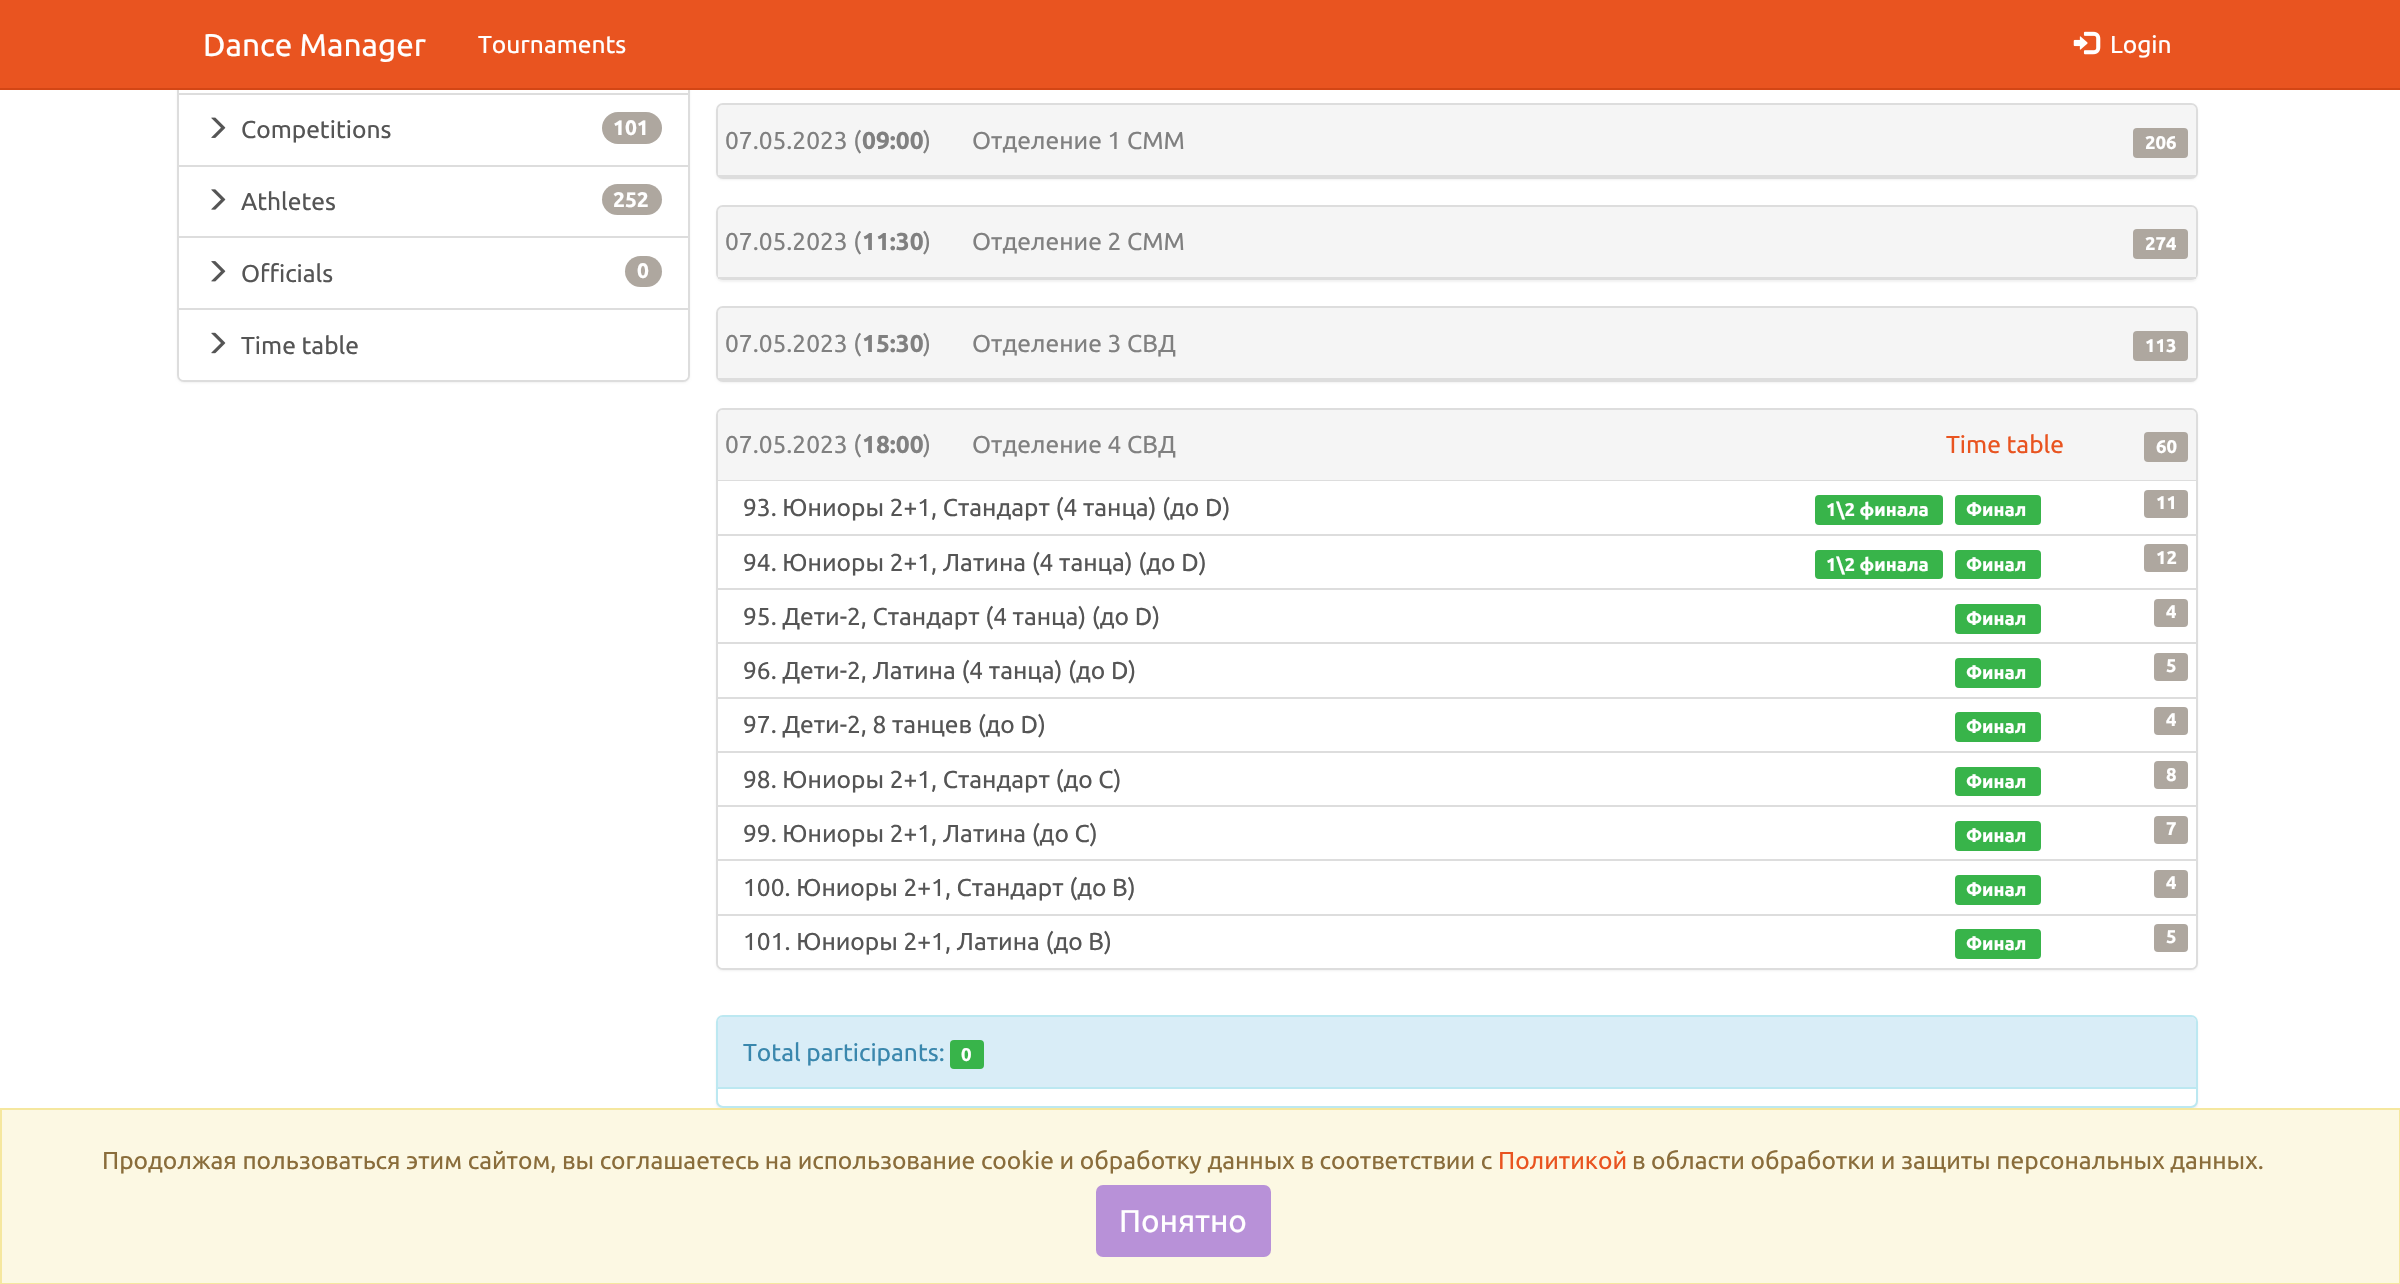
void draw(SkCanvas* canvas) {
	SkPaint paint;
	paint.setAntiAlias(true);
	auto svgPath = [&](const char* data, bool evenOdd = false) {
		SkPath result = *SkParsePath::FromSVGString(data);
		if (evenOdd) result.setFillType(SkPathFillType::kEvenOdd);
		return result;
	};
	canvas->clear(0xffffffff);
	paint.setColor(0x0d000000);
	paint.setMaskFilter(SkMaskFilter::MakeBlur(kNormal_SkBlurStyle, 1));
	canvas->drawRoundRect(SkRect::MakeXYWH(177, -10, 513, 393), 7, 7, paint);
	paint.setMaskFilter(nullptr);
	paint.setColor(0xffffffff);
	canvas->drawRoundRect(SkRect::MakeXYWH(178, -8, 511, 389), 6, 6, paint);
	paint.setStroke(true);
	paint.setStrokeWidth(2);
	paint.setColor(0xffdddddd);
	canvas->drawRoundRect(SkRect::MakeXYWH(178, -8, 511, 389), 6, 6, paint);
	paint.setStroke(false);
	paint.setColor(0xffe95420);
	canvas->drawRect(SkRect::MakeXYWH(0, 0, 2400, 88), paint);
	paint.setColor(0xffd34615);
	canvas->drawRect(SkRect::MakeXYWH(0, 88, 2400, 2), paint);
	SkFont f1(fontMgr->matchFamilyStyle("Ubuntu", SkFontStyle::Normal()), 31.5);
	f1.setSubpixel(true);
	paint.setColor(0xffffffff);
	canvas->drawString("Dance Manager", 203, 56, f1, paint);
	SkFont f2(fontMgr->matchFamilyStyle("Ubuntu", SkFontStyle::Normal()), 24.5);
	f2.setSubpixel(true);
	canvas->drawString("Tournaments", 478, 53, f2, paint);
	canvas->drawImageRect(SkImages::DeferredFromEncodedData(SkData::MakeFromFileName("img1.png")), SkRect::MakeXYWH(2073, 31, 28, 24), SkSamplingOptions());
	canvas->drawString("Login", 2110, 53, f2, paint);
	paint.setColor(0xffdddddd);
	canvas->drawRect(SkRect::MakeXYWH(179, 93, 509, 2), paint);
	canvas->drawImageRect(SkImages::DeferredFromEncodedData(SkData::MakeFromFileName("img2.png")), SkRect::MakeXYWH(211, 117, 15, 21), SkSamplingOptions());
	paint.setColor(0xff555555);
	canvas->drawString("Competitions", 241, 138, f2, paint);
	paint.setColor(0xffaea79f);
	canvas->drawRoundRect(SkRect::MakeXYWH(602, 112, 60, 32), 16, 16, paint);
	SkFont f3(fontMgr->matchFamilyStyle("Ubuntu", SkFontStyle::Bold()), 21);
	f3.setSubpixel(true);
	paint.setColor(0xffffffff);
	canvas->drawString("101", 613, 135, f3, paint);
	paint.setColor(0xffdddddd);
	canvas->drawRect(SkRect::MakeXYWH(179, 165, 509, 2), paint);
	canvas->drawRect(SkRect::MakeXYWH(179, 236, 509, 2), paint);
	canvas->drawImageRect(SkImages::DeferredFromEncodedData(SkData::MakeFromFileName("img3.png")), SkRect::MakeXYWH(211, 189, 15, 21), SkSamplingOptions());
	paint.setColor(0xff555555);
	canvas->drawString("Athletes", 241, 210, f2, paint);
	paint.setColor(0xffaea79f);
	canvas->drawRoundRect(SkRect::MakeXYWH(602, 184, 60, 31), 15.5, 15.5, paint);
	paint.setColor(0xffffffff);
	canvas->drawString("252", 613, 207, f3, paint);
	canvas->drawImageRect(SkImages::DeferredFromEncodedData(SkData::MakeFromFileName("img4.png")), SkRect::MakeXYWH(211, 261, 15, 21), SkSamplingOptions());
	paint.setColor(0xff555555);
	canvas->drawString("Officials", 241, 282, f2, paint);
	paint.setColor(0xffaea79f);
	canvas->drawRoundRect(SkRect::MakeXYWH(625, 256, 37, 31), 15.5, 15.5, paint);
	paint.setColor(0xffffffff);
	canvas->drawString("0", 637, 278, f3, paint);
	canvas->drawPath(svgPath("M179 308H688V375C688 378 686 380 683 380H184C181 380 179 378 179 375Z"), paint);
	paint.setColor(0xffdddddd);
	canvas->drawRect(SkRect::MakeXYWH(179, 308, 509, 2), paint);
	canvas->drawImageRect(SkImages::DeferredFromEncodedData(SkData::MakeFromFileName("img5.png")), SkRect::MakeXYWH(211, 332, 15, 22), SkSamplingOptions());
	paint.setColor(0xff555555);
	canvas->drawString("Time table", 241, 354, f2, paint);
	paint.setColor(0x0d000000);
	paint.setMaskFilter(SkMaskFilter::MakeBlur(kNormal_SkBlurStyle, 1));
	canvas->drawRoundRect(SkRect::MakeXYWH(716, 105, 1482, 75), 7, 7, paint);
	paint.setMaskFilter(nullptr);
	paint.setStroke(true);
	paint.setColor(0xffdddddd);
	canvas->drawRoundRect(SkRect::MakeXYWH(717, 104, 1480, 74), 6, 6, paint);
	paint.setStroke(false);
	paint.setColor(0xfff5f5f5);
	canvas->drawPath(svgPath("M723 105H2191C2194 105 2196 107 2196 110V177H718V110C718 107 720 105 723 105Z"), paint);
	paint.setColor(0xffdddddd);
	canvas->drawRect(SkRect::MakeXYWH(718, 175, 1478, 2), paint);
	paint.setColor(0xff808080);
	canvas->drawString("07.05.2023 (", 725, 149, f2, paint);
	SkFont f4(fontMgr->matchFamilyStyle("Ubuntu", SkFontStyle::Bold()), 24.5);
	f4.setSubpixel(true);
	canvas->drawString("09:00", 862, 149, f4, paint);
	canvas->drawString(")", 923, 149, f2, paint);
	canvas->drawString("Отделение 1 СММ", 972, 149, f2, paint);
	paint.setColor(0xffaea79f);
	canvas->drawRoundRect(SkRect::MakeXYWH(2133, 128, 55, 30), 4, 4, paint);
	SkFont f5(fontMgr->matchFamilyStyle("Ubuntu", SkFontStyle::Bold()), 18.5);
	f5.setSubpixel(true);
	paint.setColor(0xffffffff);
	canvas->drawString("206", 2145, 149, f5, paint);
	paint.setColor(0x0d000000);
	paint.setMaskFilter(SkMaskFilter::MakeBlur(kNormal_SkBlurStyle, 1));
	canvas->drawRoundRect(SkRect::MakeXYWH(716, 207, 1482, 75), 7, 7, paint);
	paint.setMaskFilter(nullptr);
	paint.setStroke(true);
	paint.setColor(0xffdddddd);
	canvas->drawRoundRect(SkRect::MakeXYWH(717, 206, 1480, 73), 6, 6, paint);
	paint.setStroke(false);
	paint.setColor(0xfff5f5f5);
	canvas->drawPath(svgPath("M723 207H2191C2194 207 2196 209 2196 212V278H718V212C718 209 720 207 723 207Z"), paint);
	paint.setColor(0xffdddddd);
	canvas->drawRect(SkRect::MakeXYWH(718, 277, 1478, 2), paint);
	paint.setColor(0xff808080);
	canvas->drawString("07.05.2023 (", 725, 250, f2, paint);
	canvas->drawString("11:30", 862, 250, f4, paint);
	canvas->drawString(")", 923, 250, f2, paint);
	canvas->drawString("Отделение 2 СММ", 972, 250, f2, paint);
	paint.setColor(0xffaea79f);
	canvas->drawRoundRect(SkRect::MakeXYWH(2133, 229, 55, 30), 4, 4, paint);
	paint.setColor(0xffffffff);
	canvas->drawString("274", 2145, 250, f5, paint);
	paint.setColor(0x0d000000);
	paint.setMaskFilter(SkMaskFilter::MakeBlur(kNormal_SkBlurStyle, 1));
	canvas->drawRoundRect(SkRect::MakeXYWH(716, 308, 1482, 75), 7, 7, paint);
	paint.setMaskFilter(nullptr);
	paint.setStroke(true);
	paint.setColor(0xffdddddd);
	canvas->drawRoundRect(SkRect::MakeXYWH(717, 307, 1480, 74), 6, 6, paint);
	paint.setStroke(false);
	paint.setColor(0xfff5f5f5);
	canvas->drawPath(svgPath("M723 308H2191C2194 308 2196 310 2196 313V380H718V313C718 310 720 308 723 308Z"), paint);
	paint.setColor(0xffdddddd);
	canvas->drawRect(SkRect::MakeXYWH(718, 378, 1478, 2), paint);
	paint.setColor(0xff808080);
	canvas->drawString("07.05.2023 (", 725, 352, f2, paint);
	canvas->drawString("15:30", 862, 352, f4, paint);
	canvas->drawString(")", 923, 352, f2, paint);
	canvas->drawString("Отделение 3 СВД", 972, 352, f2, paint);
	paint.setColor(0xffaea79f);
	canvas->drawRoundRect(SkRect::MakeXYWH(2133, 331, 55, 30), 4, 4, paint);
	paint.setColor(0xffffffff);
	canvas->drawString("113", 2145, 352, f5, paint);
	paint.setColor(0x0d000000);
	paint.setMaskFilter(SkMaskFilter::MakeBlur(kNormal_SkBlurStyle, 1));
	canvas->drawRoundRect(SkRect::MakeXYWH(716, 410, 1482, 561), 7, 7, paint);
	paint.setMaskFilter(nullptr);
	paint.setColor(0xffffffff);
	canvas->drawRoundRect(SkRect::MakeXYWH(717, 409, 1480, 560), 6, 6, paint);
	paint.setStroke(true);
	paint.setColor(0xffdddddd);
	canvas->drawRoundRect(SkRect::MakeXYWH(717, 409, 1480, 560), 6, 6, paint);
	paint.setStroke(false);
	paint.setColor(0xfff5f5f5);
	canvas->drawPath(svgPath("M723 410H2191C2194 410 2196 412 2196 415V481H718V415C718 412 720 410 723 410Z"), paint);
	paint.setColor(0xffdddddd);
	canvas->drawRect(SkRect::MakeXYWH(718, 480, 1478, 1), paint);
	paint.setColor(0xff808080);
	canvas->drawString("07.05.2023 (", 725, 453, f2, paint);
	canvas->drawString("18:00", 862, 453, f4, paint);
	canvas->drawString(")", 923, 453, f2, paint);
	canvas->drawString("Отделение 4 СВД", 972, 453, f2, paint);
	paint.setColor(0xffe95420);
	canvas->drawString("Time table", 1946, 453, f2, paint);
	paint.setColor(0xffaea79f);
	canvas->drawRoundRect(SkRect::MakeXYWH(2144, 432, 44, 30), 4, 4, paint);
	paint.setColor(0xffffffff);
	canvas->drawString("60", 2156, 453, f5, paint);
	paint.setColor(0xffdddddd);
	canvas->drawRect(SkRect::MakeXYWH(718, 534, 1478, 2), paint);
	paint.setColor(0xff555555);
	canvas->drawString("93. Юниоры 2+1, Стандарт (4 танца) (до D)", 743, 516, f2, paint);
	paint.setColor(0xff38b44a);
	canvas->drawRoundRect(SkRect::MakeXYWH(1815, 495, 128, 30), 4, 4, paint);
	paint.setColor(0xffffffff);
	canvas->drawString("1\\2 финала", 1826, 516, f5, paint);
	paint.setColor(0xff38b44a);
	canvas->drawRoundRect(SkRect::MakeXYWH(1955, 495, 86, 30), 4, 4, paint);
	paint.setColor(0xffffffff);
	canvas->drawString("Финал", 1966, 516, f5, paint);
	paint.setColor(0xffaea79f);
	canvas->drawRoundRect(SkRect::MakeXYWH(2144, 490, 44, 28), 4, 4, paint);
	paint.setColor(0xffffffff);
	canvas->drawString("11", 2156, 509, f5, paint);
	paint.setColor(0xffdddddd);
	canvas->drawRect(SkRect::MakeXYWH(718, 588, 1478, 2), paint);
	paint.setColor(0xff555555);
	canvas->drawString("94. Юниоры 2+1, Латина (4 танца) (до D)", 743, 571, f2, paint);
	paint.setColor(0xff38b44a);
	canvas->drawRoundRect(SkRect::MakeXYWH(1815, 550, 128, 29), 4, 4, paint);
	paint.setColor(0xffffffff);
	canvas->drawString("1\\2 финала", 1826, 571, f5, paint);
	paint.setColor(0xff38b44a);
	canvas->drawRoundRect(SkRect::MakeXYWH(1955, 550, 86, 29), 4, 4, paint);
	paint.setColor(0xffffffff);
	canvas->drawString("Финал", 1966, 571, f5, paint);
	paint.setColor(0xffaea79f);
	canvas->drawRoundRect(SkRect::MakeXYWH(2144, 544, 44, 28), 4, 4, paint);
	paint.setColor(0xffffffff);
	canvas->drawString("12", 2156, 564, f5, paint);
	paint.setColor(0xffdddddd);
	canvas->drawRect(SkRect::MakeXYWH(718, 642, 1478, 2), paint);
	paint.setColor(0xff555555);
	canvas->drawString("95. Дети-2, Стандарт (4 танца) (до D)", 743, 625, f2, paint);
	paint.setColor(0xff38b44a);
	canvas->drawRoundRect(SkRect::MakeXYWH(1955, 604, 86, 30), 4, 4, paint);
	paint.setColor(0xffffffff);
	canvas->drawString("Финал", 1966, 625, f5, paint);
	paint.setColor(0xffaea79f);
	canvas->drawRoundRect(SkRect::MakeXYWH(2154, 599, 34, 28), 4, 4, paint);
	paint.setColor(0xffffffff);
	canvas->drawString("4", 2166, 618, f5, paint);
	paint.setColor(0xff555555);
	canvas->drawString("96. Дети-2, Латина (4 танца) (до D)", 743, 679, f2, paint);
	paint.setColor(0xff38b44a);
	canvas->drawRoundRect(SkRect::MakeXYWH(1955, 658, 86, 30), 4, 4, paint);
	paint.setColor(0xffffffff);
	canvas->drawString("Финал", 1966, 679, f5, paint);
	paint.setColor(0xffaea79f);
	canvas->drawRoundRect(SkRect::MakeXYWH(2154, 653, 34, 28), 4, 4, paint);
	paint.setColor(0xffffffff);
	canvas->drawString("5", 2166, 672, f5, paint);
	paint.setColor(0xffdddddd);
	canvas->drawRect(SkRect::MakeXYWH(718, 697, 1478, 2), paint);
	canvas->drawRect(SkRect::MakeXYWH(718, 751, 1478, 2), paint);
	paint.setColor(0xff555555);
	canvas->drawString("97. Дети-2, 8 танцев (до D)", 743, 733, f2, paint);
	paint.setColor(0xff38b44a);
	canvas->drawRoundRect(SkRect::MakeXYWH(1955, 712, 86, 30), 4, 4, paint);
	paint.setColor(0xffffffff);
	canvas->drawString("Финал", 1966, 733, f5, paint);
	paint.setColor(0xffaea79f);
	canvas->drawRoundRect(SkRect::MakeXYWH(2154, 707, 34, 28), 4, 4, paint);
	paint.setColor(0xffffffff);
	canvas->drawString("4", 2166, 726, f5, paint);
	paint.setColor(0xffdddddd);
	canvas->drawRect(SkRect::MakeXYWH(718, 805, 1478, 2), paint);
	paint.setColor(0xff555555);
	canvas->drawString("98. Юниоры 2+1, Стандарт (до C)", 743, 788, f2, paint);
	paint.setColor(0xff38b44a);
	canvas->drawRoundRect(SkRect::MakeXYWH(1955, 767, 86, 29), 4, 4, paint);
	paint.setColor(0xffffffff);
	canvas->drawString("Финал", 1966, 788, f5, paint);
	paint.setColor(0xffaea79f);
	canvas->drawRoundRect(SkRect::MakeXYWH(2154, 761, 34, 28), 4, 4, paint);
	paint.setColor(0xffffffff);
	canvas->drawString("8", 2166, 781, f5, paint);
	paint.setColor(0xffdddddd);
	canvas->drawRect(SkRect::MakeXYWH(718, 859, 1478, 2), paint);
	paint.setColor(0xff555555);
	canvas->drawString("99. Юниоры 2+1, Латина (до C)", 743, 842, f2, paint);
	paint.setColor(0xff38b44a);
	canvas->drawRoundRect(SkRect::MakeXYWH(1955, 821, 86, 30), 4, 4, paint);
	paint.setColor(0xffffffff);
	canvas->drawString("Финал", 1966, 842, f5, paint);
	paint.setColor(0xffaea79f);
	canvas->drawRoundRect(SkRect::MakeXYWH(2154, 816, 34, 28), 4, 4, paint);
	paint.setColor(0xffffffff);
	canvas->drawString("7", 2166, 835, f5, paint);
	paint.setColor(0xff555555);
	canvas->drawString("100. Юниоры 2+1, Стандарт (до B)", 743, 896, f2, paint);
	paint.setColor(0xff38b44a);
	canvas->drawRoundRect(SkRect::MakeXYWH(1955, 875, 86, 30), 4, 4, paint);
	paint.setColor(0xffffffff);
	canvas->drawString("Финал", 1966, 896, f5, paint);
	paint.setColor(0xffaea79f);
	canvas->drawRoundRect(SkRect::MakeXYWH(2154, 870, 34, 28), 4, 4, paint);
	paint.setColor(0xffffffff);
	canvas->drawString("4", 2166, 889, f5, paint);
	canvas->drawPath(svgPath("M718 914H2196V963C2196 966 2194 968 2191 968H723C720 968 718 966 718 963Z"), paint);
	paint.setColor(0xffdddddd);
	canvas->drawRect(SkRect::MakeXYWH(718, 914, 1478, 2), paint);
	paint.setColor(0xff555555);
	canvas->drawString("101. Юниоры 2+1, Латина (до B)", 743, 950, f2, paint);
	paint.setColor(0xff38b44a);
	canvas->drawRoundRect(SkRect::MakeXYWH(1955, 929, 86, 30), 4, 4, paint);
	paint.setColor(0xffffffff);
	canvas->drawString("Финал", 1966, 950, f5, paint);
	paint.setColor(0xffaea79f);
	canvas->drawRoundRect(SkRect::MakeXYWH(2154, 924, 34, 28), 4, 4, paint);
	paint.setColor(0xffffffff);
	canvas->drawString("5", 2166, 943, f5, paint);
	paint.setColor(0x0d000000);
	paint.setMaskFilter(SkMaskFilter::MakeBlur(kNormal_SkBlurStyle, 1));
	canvas->drawRoundRect(SkRect::MakeXYWH(716, 1017, 1482, 93), 7, 7, paint);
	paint.setMaskFilter(nullptr);
	paint.setColor(0xffffffff);
	canvas->drawRoundRect(SkRect::MakeXYWH(717, 1016, 1480, 91), 6, 6, paint);
	paint.setStroke(true);
	paint.setColor(0xffbce8f1);
	canvas->drawRoundRect(SkRect::MakeXYWH(717, 1016, 1480, 91), 6, 6, paint);
	paint.setStroke(false);
	paint.setColor(0xffd9edf7);
	canvas->drawPath(svgPath("M723 1017H2191C2194 1017 2196 1019 2196 1022V1089H718V1022C718 1019 720 1017 723 1017Z"), paint);
	paint.setColor(0xffbce8f1);
	canvas->drawRect(SkRect::MakeXYWH(718, 1087, 1478, 2), paint);
	paint.setColor(0xff3a87ad);
	canvas->drawString("Total participants:", 743, 1061, f2, paint);
	paint.setColor(0xff38b44a);
	canvas->drawRoundRect(SkRect::MakeXYWH(950, 1040, 34, 29), 4, 4, paint);
	paint.setColor(0xffffffff);
	canvas->drawString("0", 961, 1061, f5, paint);
	paint.setColor(0xfffcf8e3);
	canvas->drawRect(SkRect::MakeXYWH(1, 1109, 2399, 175), paint);
	paint.setStroke(true);
	paint.setColor(0xfff5e79e);
	canvas->drawRect(SkRect::MakeXYWH(1, 1109, 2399, 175), paint);
	paint.setStroke(false);
	paint.setColor(0xff8a6d3b);
	canvas->drawString("Продолжая пользоваться этим сайтом, вы соглашаетесь на использование cookie и обработку данных в соответствии с", 102, 1169, f2, paint);
	paint.setColor(0xffe95420);
	canvas->drawString("Политикой", 1498, 1169, f2, paint);
	paint.setColor(0xff8a6d3b);
	canvas->drawString("в области обработки и защиты персональных данных.", 1632, 1169, f2, paint);
	paint.setColor(0xffb891d8);
	canvas->drawRoundRect(SkRect::MakeXYWH(1097, 1186, 173, 70), 6, 6, paint);
	paint.setStroke(true);
	canvas->drawRoundRect(SkRect::MakeXYWH(1097, 1186, 173, 70), 6, 6, paint);
	paint.setStroke(false);
	paint.setColor(0xffffffff);
	canvas->drawString("Понятно", 1119, 1232, f1, paint);
}
